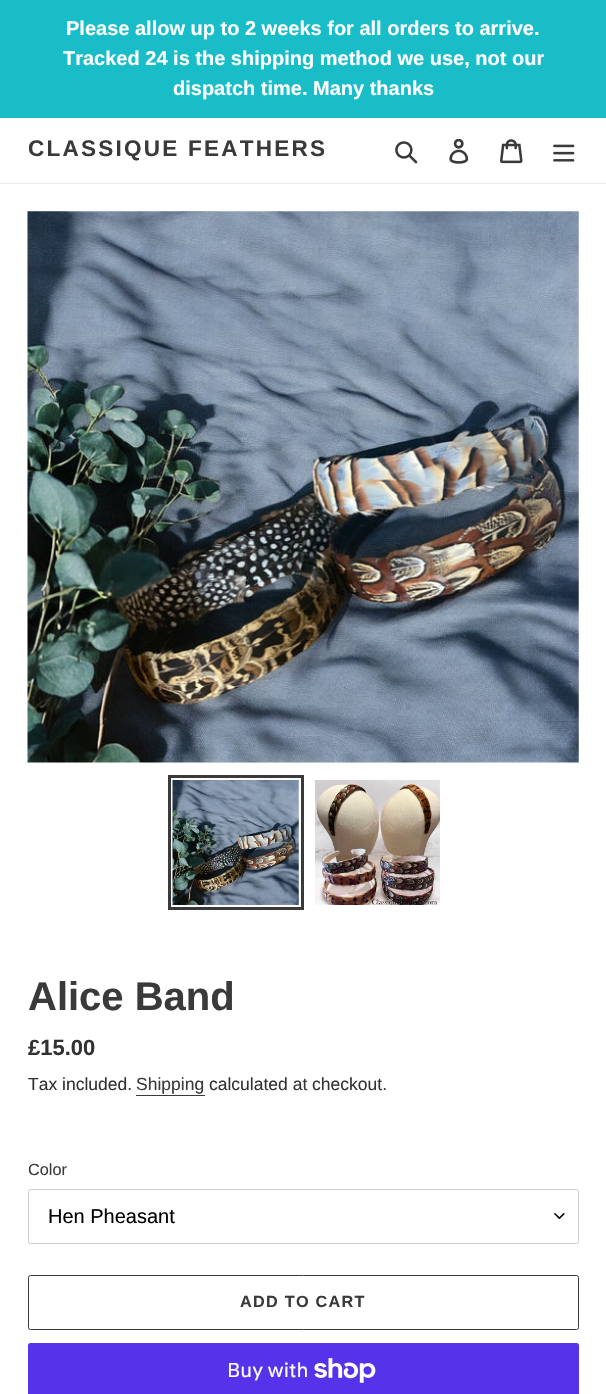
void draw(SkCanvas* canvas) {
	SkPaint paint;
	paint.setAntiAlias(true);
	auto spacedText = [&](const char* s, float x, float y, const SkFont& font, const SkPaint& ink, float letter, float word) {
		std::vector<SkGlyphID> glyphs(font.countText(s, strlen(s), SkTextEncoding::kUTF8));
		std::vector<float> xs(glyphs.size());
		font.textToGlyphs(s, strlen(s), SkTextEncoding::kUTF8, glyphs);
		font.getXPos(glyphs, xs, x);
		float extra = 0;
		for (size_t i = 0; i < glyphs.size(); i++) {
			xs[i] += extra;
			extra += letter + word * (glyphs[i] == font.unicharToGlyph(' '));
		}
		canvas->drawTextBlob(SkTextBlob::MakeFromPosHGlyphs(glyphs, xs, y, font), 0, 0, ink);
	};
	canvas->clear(0xffffffff);
	paint.setColor(0xff18bdc8);
	canvas->drawRect(SkRect::MakeXYWH(0, 0, 606, 118), paint);
	SkFont f1(fontMgr->matchFamilyStyle("Liberation Sans", SkFontStyle::Bold()), 20);
	f1.setSubpixel(true);
	paint.setColor(0xffffffff);
	canvas->drawString("Please allow up to 2 weeks for all orders to arrive.", 66, 35, f1, paint);
	canvas->drawString("Tracked 24 is the shipping method we use, not our", 63, 65, f1, paint);
	canvas->drawString("dispatch time. Many thanks", 173, 95, f1, paint);
	paint.setColor(0xffebebeb);
	canvas->drawRect(SkRect::MakeXYWH(0, 183, 606, 1), paint);
	SkFont f2(fontMgr->matchFamilyStyle("Liberation Sans", SkFontStyle::Bold()), 22.5);
	f2.setSubpixel(true);
	paint.setColor(0xff3a3a3a);
	spacedText("CLASSIQUE FEATHERS", 28, 156, f2, paint, 2.25, 0);
	canvas->drawImageRect(SkImages::DeferredFromEncodedData(SkData::MakeFromFileName("img1.png")), SkRect::MakeXYWH(395, 141, 23, 23), SkSamplingOptions());
	canvas->drawImageRect(SkImages::DeferredFromEncodedData(SkData::MakeFromFileName("img2.png")), SkRect::MakeXYWH(449, 139, 20, 25), SkSamplingOptions());
	canvas->drawImageRect(SkImages::DeferredFromEncodedData(SkData::MakeFromFileName("img3.png")), SkRect::MakeXYWH(500, 139, 23, 25), SkSamplingOptions());
	canvas->drawImageRect(SkImages::DeferredFromEncodedData(SkData::MakeFromFileName("img4.png")), SkRect::MakeXYWH(553, 144, 22, 18), SkSamplingOptions());
	canvas->drawImageRect(SkImages::DeferredFromEncodedData(SkData::MakeFromFileName("img5.png")), SkRect::MakeXYWH(27, 211, 552, 552), SkSamplingOptions());
	paint.setStroke(true);
	paint.setStrokeWidth(3);
	canvas->drawRect(SkRect::MakeXYWH(169.5, 776.5, 133, 132), paint);
	canvas->drawImageRect(SkImages::DeferredFromEncodedData(SkData::MakeFromFileName("img6.png")), SkRect::MakeXYWH(172, 780, 127, 125), SkSamplingOptions());
	canvas->drawImageRect(SkImages::DeferredFromEncodedData(SkData::MakeFromFileName("img7.png")), SkRect::MakeXYWH(315, 780, 125, 125), SkSamplingOptions());
	SkFont f3(fontMgr->matchFamilyStyle("Liberation Sans", SkFontStyle::Bold()), 40);
	f3.setSubpixel(true);
	paint.setStroke(false);
	canvas->drawString("Alice Band", 28, 1010, f3, paint);
	SkFont f4(fontMgr->matchFamilyStyle("Liberation Sans", SkFontStyle::Bold()), 22);
	f4.setSubpixel(true);
	paint.setColor(0xff333232);
	canvas->drawString("£15.00", 28, 1055, f4, paint);
	SkFont f5(fontMgr->matchFamilyStyle("Liberation Sans", SkFontStyle::Normal()), 17.5);
	f5.setSubpixel(true);
	canvas->drawString("Tax included.", 28, 1090, f5, paint);
	paint.setColor(0xff3a3a3a);
	canvas->drawString("Shipping", 136, 1090, f5, paint);
	canvas->drawRect(SkRect::MakeXYWH(136, 1095, 69, 1), paint);
	paint.setColor(0xff333232);
	canvas->drawString("calculated at checkout.", 209, 1090, f5, paint);
	SkFont f6(fontMgr->matchFamilyStyle("Liberation Sans", SkFontStyle::Normal()), 16.25);
	f6.setSubpixel(true);
	paint.setColor(0xff3a3a3a);
	canvas->drawString("Color", 28, 1175, f6, paint);
	canvas->drawImageRect(SkImages::DeferredFromEncodedData(SkData::MakeFromFileName("img8.png")), SkRect::MakeXYWH(554, 1213, 11, 6), SkSamplingOptions());
	paint.setStroke(true);
	paint.setStrokeWidth(1);
	paint.setColor(0xffcccccc);
	canvas->drawRoundRect(SkRect::MakeXYWH(28.5, 1189.5, 550, 54), 2, 2, paint);
	SkFont f7(fontMgr->matchFamilyStyle("Liberation Sans", SkFontStyle::Normal()), 20);
	f7.setSubpixel(true);
	paint.setStroke(false);
	paint.setColor(0xff000000);
	canvas->drawString("Hen Pheasant", 48, 1223, f7, paint);
	paint.setStroke(true);
	paint.setColor(0xff3a3a3a);
	canvas->drawRoundRect(SkRect::MakeXYWH(28.5, 1275.5, 550, 54), 2, 2, paint);
	SkFont f8(fontMgr->matchFamilyStyle("Liberation Sans", SkFontStyle::Bold()), 16.25);
	f8.setSubpixel(true);
	paint.setStroke(false);
	spacedText("ADD TO CART", 240, 1307, f8, paint, 1.25, 0);
	paint.setColor(0xff5433eb);
	canvas->drawRoundRect(SkRect::MakeXYWH(28, 1343, 551, 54), 2.5, 2.5, paint);
	SkFont f9(fontMgr->matchFamilyStyle("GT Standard", SkFontStyle::Normal()), 20);
	f9.setSubpixel(true);
	paint.setColor(0xffffffff);
	canvas->drawString("Buy with", 227, 1377, f9, paint);
	canvas->drawImageRect(SkImages::DeferredFromEncodedData(SkData::MakeFromFileName("img9.png")), SkRect::MakeXYWH(314, 1358, 62, 25), SkSamplingOptions());
}
